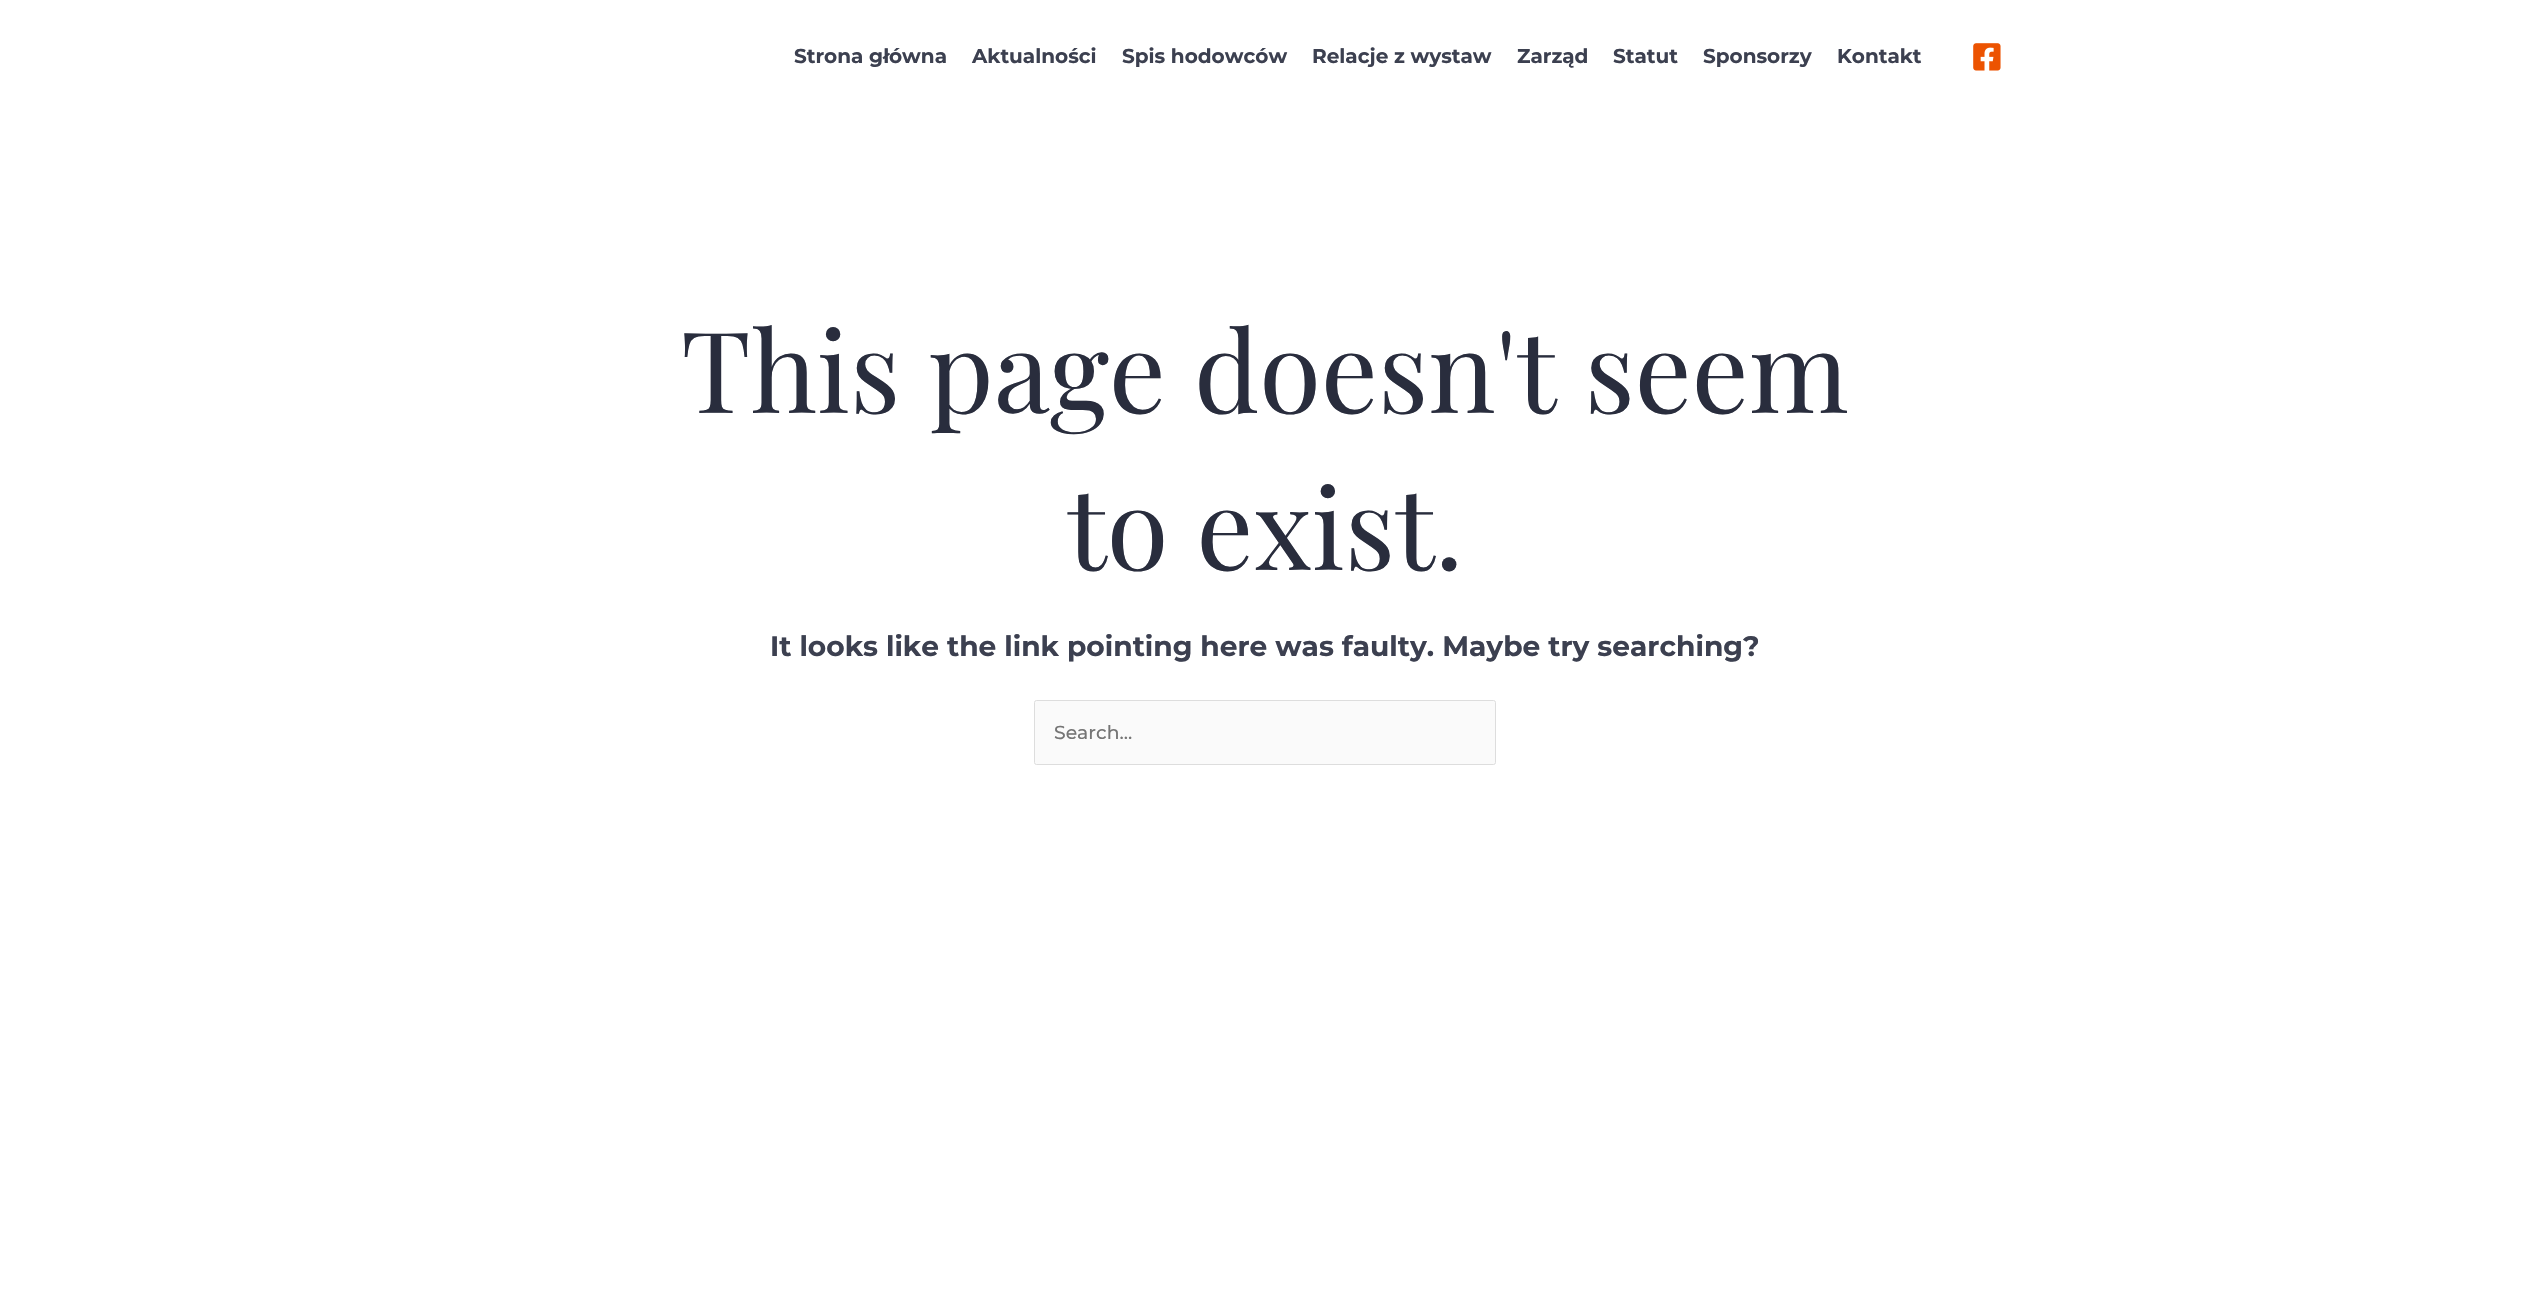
void draw(SkCanvas* canvas) {
	SkPaint paint;
	paint.setAntiAlias(true);
	canvas->clear(0xffffffff);
	SkFont f1(fontMgr->matchFamilyStyle("Montserrat", SkFontStyle::Bold()), 20);
	f1.setSubpixel(true);
	paint.setColor(0xff3c4050);
	canvas->drawString("Strona główna", 794, 63, f1, paint);
	canvas->drawString("Aktualności", 972, 63, f1, paint);
	canvas->drawString("Spis hodowców", 1122, 63, f1, paint);
	canvas->drawString("Relacje z wystaw", 1312, 63, f1, paint);
	canvas->drawString("Zarząd", 1517, 63, f1, paint);
	canvas->drawString("Statut", 1613, 63, f1, paint);
	canvas->drawString("Sponsorzy", 1703, 63, f1, paint);
	canvas->drawString("Kontakt", 1837, 63, f1, paint);
	canvas->drawImageRect(SkImages::DeferredFromEncodedData(SkData::MakeFromFileName("img1.png")), SkRect::MakeXYWH(1973, 43, 28, 28), SkSamplingOptions());
	SkFont f2(fontMgr->matchFamilyStyle("Playfair Display", SkFontStyle::Normal()), 112.5);
	f2.setSubpixel(true);
	paint.setColor(0xff292d3d);
	canvas->drawString("This page doesn't seem", 681, 413, f2, paint);
	canvas->drawString("to exist.", 1067, 570, f2, paint);
	SkFont f3(fontMgr->matchFamilyStyle("Montserrat", SkFontStyle::Bold()), 28.1);
	f3.setSubpixel(true);
	paint.setColor(0xff3c4050);
	canvas->drawString("It looks like the link pointing here was faulty. Maybe try searching?", 770, 656, f3, paint);
	paint.setColor(0xfffafafa);
	canvas->drawRoundRect(SkRect::MakeXYWH(1034.5, 700.5, 461, 64), 2, 2, paint);
	paint.setStroke(true);
	paint.setStrokeWidth(1);
	paint.setColor(0xffdddddd);
	canvas->drawRoundRect(SkRect::MakeXYWH(1034.5, 700.5, 461, 64), 2, 2, paint);
	SkFont f4(fontMgr->matchFamilyStyle("Montserrat", SkFontStyle(500, SkFontStyle::kNormal_Width, SkFontStyle::kUpright_Slant)), 18.75);
	f4.setSubpixel(true);
	paint.setStroke(false);
	paint.setColor(0xff757575);
	canvas->drawString("Search...", 1054, 739, f4, paint);
}
